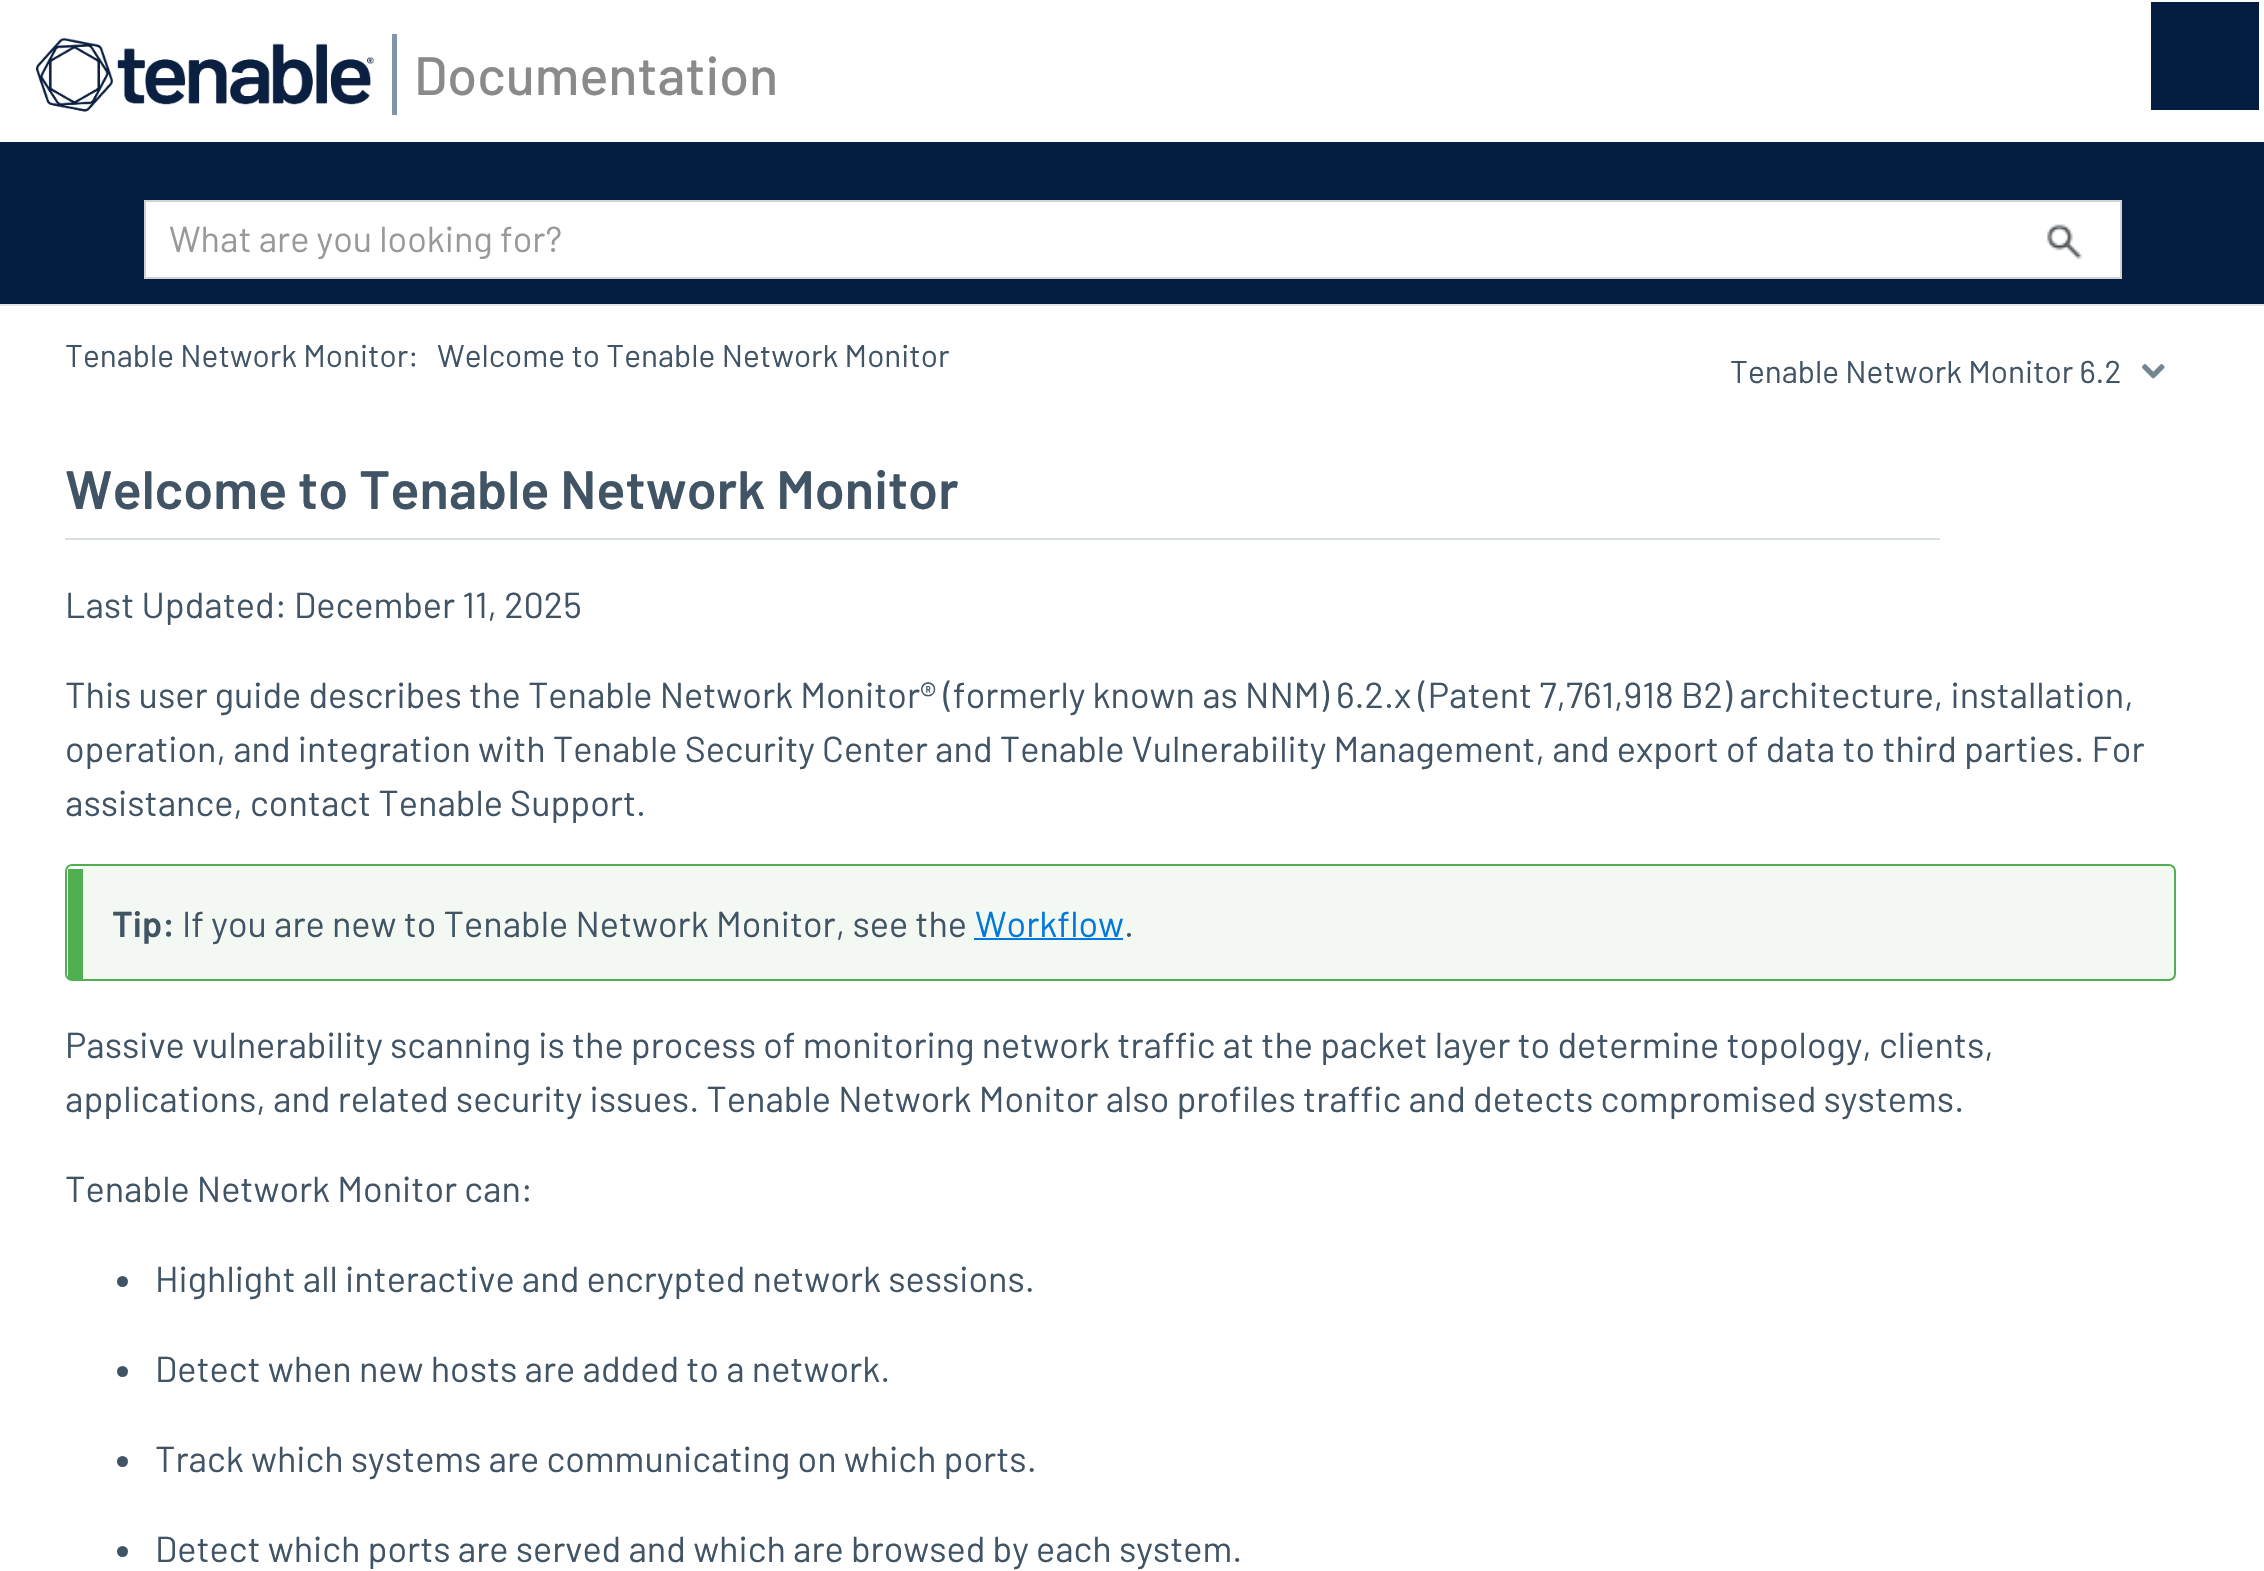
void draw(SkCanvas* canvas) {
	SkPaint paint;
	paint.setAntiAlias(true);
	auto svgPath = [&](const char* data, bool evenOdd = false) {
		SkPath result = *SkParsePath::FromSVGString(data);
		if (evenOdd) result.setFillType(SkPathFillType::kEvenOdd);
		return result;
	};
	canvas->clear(0xffffffff);
	paint.setColor(0xffe6e6e6);
	canvas->drawRect(SkRect::MakeXYWH(0, 304, 2264, 2), paint);
	canvas->drawImageRect(SkImages::DeferredFromEncodedData(SkData::MakeFromFileName("img1.png")), SkRect::MakeXYWH(36, 37, 338, 75), SkSamplingOptions());
	paint.setColor(0xff8294a8);
	canvas->drawRect(SkRect::MakeXYWH(392, 34, 5, 81), paint);
	SkFont f1(fontMgr->matchFamilyStyle("Barlow", SkFontStyle(500, SkFontStyle::kNormal_Width, SkFontStyle::kUpright_Slant)), 54);
	f1.setSubpixel(true);
	paint.setColor(0xff8a8a8a);
	canvas->drawString("Documentation", 414, 95, f1, paint);
	paint.setColor(0xff041e42);
	canvas->drawRect(SkRect::MakeXYWH(0, 142, 2264, 162), paint);
	paint.setColor(0xffffffff);
	canvas->drawRect(SkRect::MakeXYWH(145, 201, 1976, 77), paint);
	paint.setStroke(true);
	paint.setStrokeWidth(2);
	paint.setColor(0xffd3d3d3);
	canvas->drawRect(SkRect::MakeXYWH(145, 201, 1976, 77), paint);
	canvas->save();
	canvas->clipRect(SkRect::MakeXYWH(169, 216, 1723, 43));
	SkFont f2(fontMgr->matchFamilyStyle("Barlow", SkFontStyle::Normal()), 36);
	f2.setSubpixel(true);
	paint.setStroke(false);
	paint.setColor(0xff999999);
	canvas->drawString("What are you looking for?", 169, 252, f2, paint);
	canvas->restore();
	canvas->drawImageRect(SkImages::DeferredFromEncodedData(SkData::MakeFromFileName("img2.png")), SkRect::MakeXYWH(2047, 224, 35, 36), SkSamplingOptions());
	paint.setColor(0xff041e42);
	canvas->drawRect(SkRect::MakeXYWH(2151, 2, 108, 108), paint);
	SkFont f3(fontMgr->matchFamilyStyle("Barlow", SkFontStyle::Normal()), 31.5);
	f3.setSubpixel(true);
	paint.setColor(0xff415465);
	canvas->drawString("Tenable Network Monitor:", 65, 367, f3, paint);
	canvas->drawString("Welcome to Tenable Network Monitor", 437, 367, f3, paint);
	canvas->drawImageRect(SkImages::DeferredFromEncodedData(SkData::MakeFromFileName("img3.png")), SkRect::MakeXYWH(2142, 364, 23, 15), SkSamplingOptions());
	canvas->drawString("Tenable Network Monitor 6.2", 1730, 383, f3, paint);
	paint.setColor(0xffdadfe1);
	canvas->drawRect(SkRect::MakeXYWH(65, 538, 1875, 2), paint);
	SkFont f4(fontMgr->matchFamilyStyle("Barlow", SkFontStyle(600, SkFontStyle::kNormal_Width, SkFontStyle::kUpright_Slant)), 54);
	f4.setSubpixel(true);
	paint.setColor(0xff415465);
	canvas->drawString("Welcome to Tenable Network Monitor", 65, 509, f4, paint);
	canvas->drawString("Last Updated: December 11, 2025", 65, 618, f2, paint);
	canvas->drawString("This user guide describes the Tenable Network Monitor® (formerly known as NNM) 6.2.x (Patent 7,761,918 B2) architecture, installation,", 65, 708, f2, paint);
	canvas->drawString("operation, and integration with Tenable Security Center and Tenable Vulnerability Management, and export of data to third parties. For", 65, 762, f2, paint);
	canvas->drawString("assistance, contact Tenable Support.", 65, 816, f2, paint);
	paint.setColor(0xfff3f8f3);
	canvas->drawPath(svgPath("M83 866H2169C2171 866 2174 868 2174 871V974C2174 977 2171 979 2169 979H83Z"), paint);
	paint.setStroke(true);
	paint.setColor(0xff50af51);
	canvas->drawRoundRect(SkRect::MakeXYWH(66, 865, 2109, 115), 6, 6, paint);
	paint.setStroke(false);
	canvas->drawRect(SkRect::MakeXYWH(68, 869, 15, 110), paint);
	SkFont f5(fontMgr->matchFamilyStyle("Barlow", SkFontStyle(600, SkFontStyle::kNormal_Width, SkFontStyle::kUpright_Slant)), 36);
	f5.setSubpixel(true);
	paint.setColor(0xff415465);
	canvas->drawString("Tip:", 112, 937, f5, paint);
	canvas->drawString("If you are new to Tenable Network Monitor, see the", 182, 937, f2, paint);
	paint.setColor(0xff0079dd);
	canvas->drawString("Workflow", 975, 937, f2, paint);
	canvas->drawRect(SkRect::MakeXYWH(974, 938, 149, 2), paint);
	paint.setColor(0xff415465);
	canvas->drawString(".", 1124, 937, f2, paint);
	canvas->drawString("Passive vulnerability scanning is the process of monitoring network traffic at the packet layer to determine topology, clients,", 65, 1058, f2, paint);
	canvas->drawString("applications, and related security issues. Tenable Network Monitor also profiles traffic and detects compromised systems.", 65, 1112, f2, paint);
	canvas->drawString("Tenable Network Monitor can:", 65, 1202, f2, paint);
	canvas->drawCircle(122.5, 1281.5, 5.5, paint);
	canvas->drawString("Highlight all interactive and encrypted network sessions.", 155, 1292, f2, paint);
	canvas->drawCircle(122.5, 1371.5, 5.5, paint);
	canvas->drawString("Detect when new hosts are added to a network.", 155, 1382, f2, paint);
	canvas->drawCircle(122.5, 1461.5, 5.5, paint);
	canvas->drawString("Track which systems are communicating on which ports.", 155, 1472, f2, paint);
	canvas->drawCircle(122.5, 1551.5, 5.5, paint);
	canvas->drawString("Detect which ports are served and which are browsed by each system.", 155, 1562, f2, paint);
}
